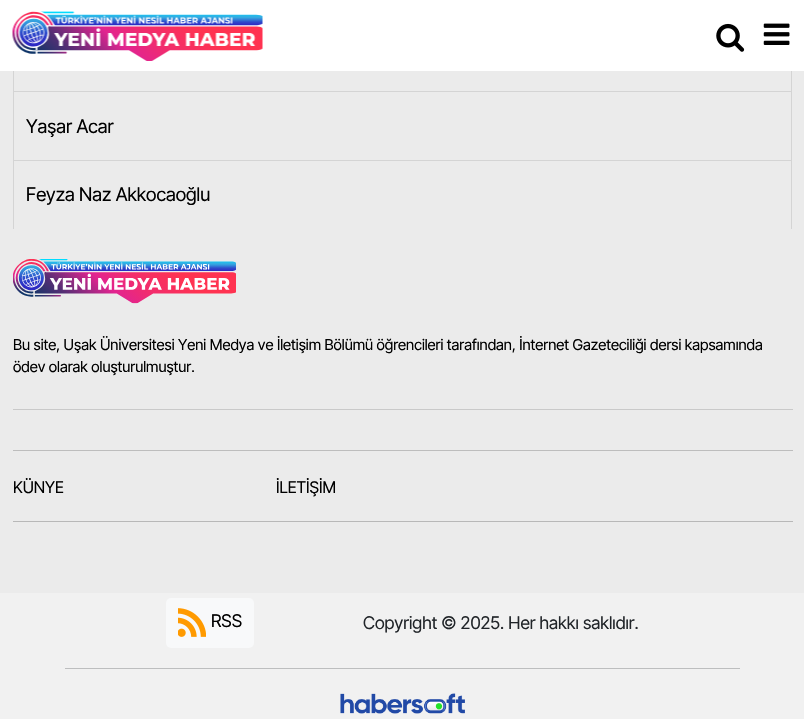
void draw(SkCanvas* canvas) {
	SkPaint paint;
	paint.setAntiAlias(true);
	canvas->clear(0xfff1f1f1);
	paint.setColor(0xffffffff);
	canvas->drawRect(SkRect::MakeXYWH(0, 0, 804, 71), paint);
	canvas->drawImageRect(SkImages::DeferredFromEncodedData(SkData::MakeFromFileName("img1.png")), SkRect::MakeXYWH(12, 11, 251, 50), SkSamplingOptions());
	canvas->drawImageRect(SkImages::DeferredFromEncodedData(SkData::MakeFromFileName("img2.png")), SkRect::MakeXYWH(716, 23, 29, 29), SkSamplingOptions());
	canvas->drawImageRect(SkImages::DeferredFromEncodedData(SkData::MakeFromFileName("img3.png")), SkRect::MakeXYWH(763, 23, 27, 22), SkSamplingOptions());
	paint.setColor(0xffebebeb);
	canvas->drawRect(SkRect::MakeXYWH(0, 71, 804, 522), paint);
	paint.setColor(0xffd4d4d4);
	canvas->drawRect(SkRect::MakeXYWH(791, 71, 1, 158), paint);
	canvas->drawRect(SkRect::MakeXYWH(13, 71, 1, 158), paint);
	canvas->drawRect(SkRect::MakeXYWH(14, 91, 777, 1), paint);
	canvas->drawRect(SkRect::MakeXYWH(14, 160, 777, 1), paint);
	SkFont f1(fontMgr->matchFamilyStyle("Inter Tight", SkFontStyle::Normal()), 18.75);
	f1.setSubpixel(true);
	paint.setColor(0xff000000);
	canvas->drawString("Yaşar Acar", 26, 133, f1, paint);
	canvas->drawString("Feyza Naz Akkocaoğlu", 26, 201, f1, paint);
	canvas->drawImageRect(SkImages::DeferredFromEncodedData(SkData::MakeFromFileName("img4.png")), SkRect::MakeXYWH(13, 259, 223, 45), SkSamplingOptions());
	paint.setColor(0xffc9c9c9);
	canvas->drawRect(SkRect::MakeXYWH(13, 409, 780, 1), paint);
	SkFont f2(fontMgr->matchFamilyStyle("Inter Tight", SkFontStyle::Normal()), 15);
	f2.setSubpixel(true);
	paint.setColor(0xff000000);
	canvas->drawString("Bu site, Uşak Üniversitesi Yeni Medya ve İletişim Bölümü öğrencileri tarafından, İnternet Gazeteciliği dersi kapsamında", 13, 350, f2, paint);
	canvas->drawString("ödev olarak oluşturulmuştur.", 13, 372, f2, paint);
	paint.setColor(0xffbdbdbd);
	canvas->drawRect(SkRect::MakeXYWH(13, 450, 780, 1), paint);
	SkFont f3(fontMgr->matchFamilyStyle("Inter Tight", SkFontStyle::Normal()), 16);
	f3.setSubpixel(true);
	paint.setColor(0xff000000);
	canvas->drawString("KÜNYE", 13, 493, f3, paint);
	canvas->drawString("İLETİŞİM", 276, 493, f3, paint);
	paint.setColor(0xffb8b8b8);
	canvas->drawRect(SkRect::MakeXYWH(13, 521, 780, 1), paint);
	paint.setColor(0xfff8f9fa);
	canvas->drawRoundRect(SkRect::MakeXYWH(166, 598, 88, 50), 5, 5, paint);
	canvas->drawImageRect(SkImages::DeferredFromEncodedData(SkData::MakeFromFileName("img5.png")), SkRect::MakeXYWH(178, 608, 28, 29), SkSamplingOptions());
	SkFont f4(fontMgr->matchFamilyStyle("Inter Tight", SkFontStyle::Normal()), 17.5);
	f4.setSubpixel(true);
	paint.setColor(0xff000000);
	canvas->drawString("RSS", 211, 627, f4, paint);
	paint.setColor(0xff212529);
	canvas->drawString("Copyright © 2025. Her hakkı saklıdır.", 363, 629, f4, paint);
	paint.setColor(0xffbdbebf);
	canvas->drawRect(SkRect::MakeXYWH(65, 668, 675, 1), paint);
	canvas->drawImageRect(SkImages::DeferredFromEncodedData(SkData::MakeFromFileName("img6.png")), SkRect::MakeXYWH(340, 693, 125, 21), SkSamplingOptions());
}
